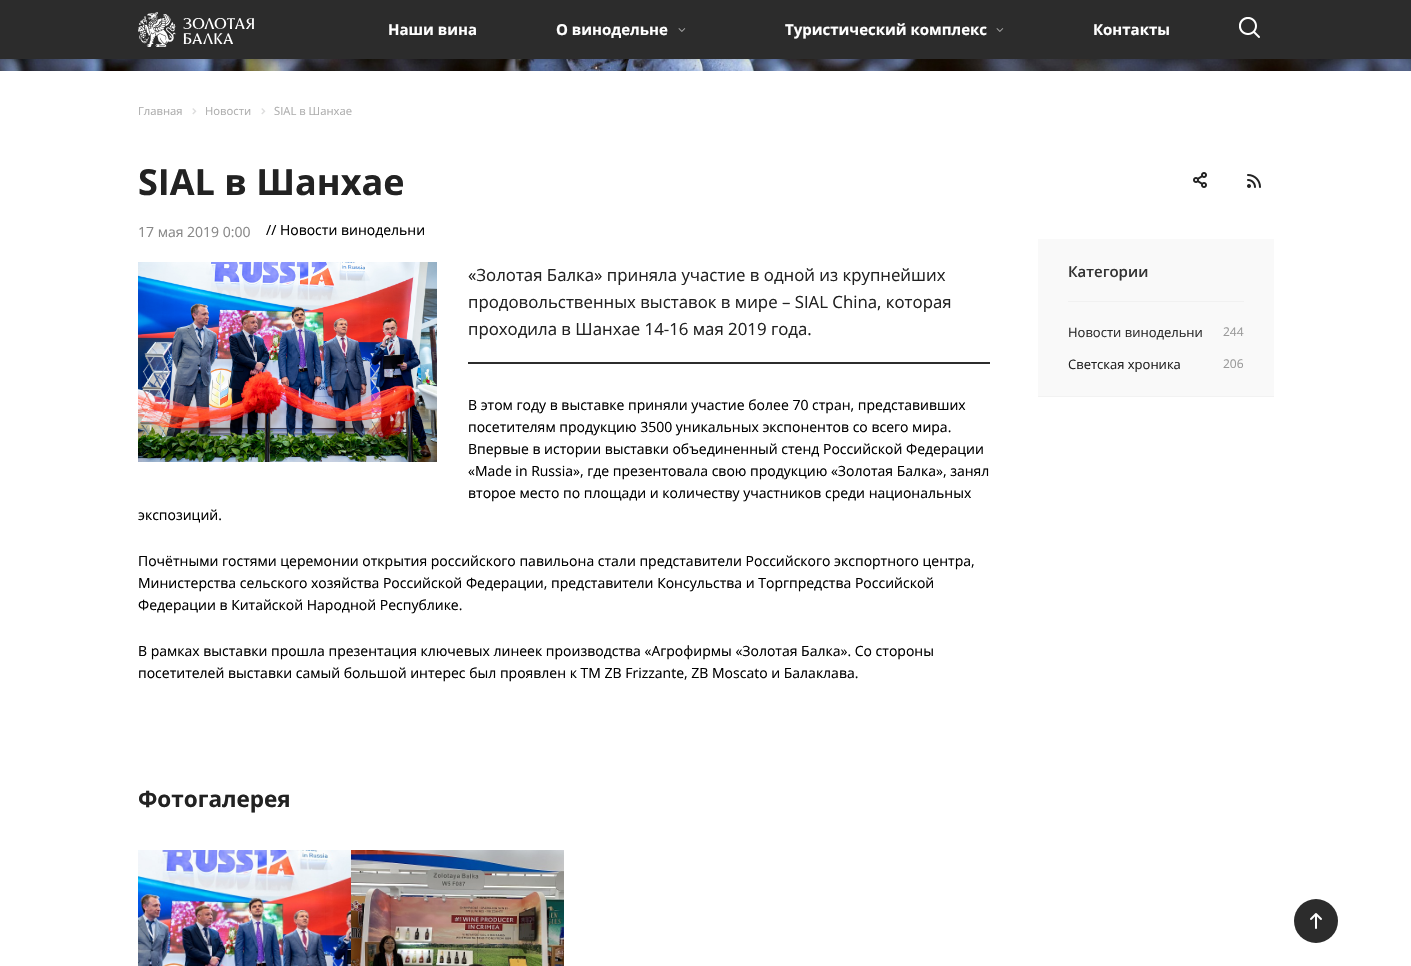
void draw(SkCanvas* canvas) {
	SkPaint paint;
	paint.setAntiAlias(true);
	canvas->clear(0xffffffff);
	canvas->drawImageRect(SkImages::DeferredFromEncodedData(SkData::MakeFromFileName("img4.png")), SkRect::MakeXYWH(0, 59, 1411, 12), SkSamplingOptions());
	paint.setColor(0x24000000);
	paint.setMaskFilter(SkMaskFilter::MakeBlur(kNormal_SkBlurStyle, 2.5));
	canvas->drawRect(SkRect::MakeXYWH(0, 1, 1411, 59), paint);
	paint.setMaskFilter(nullptr);
	paint.setColor(0xff2c2c2c);
	canvas->drawRect(SkRect::MakeXYWH(0, 0, 1411, 59), paint);
	canvas->drawImageRect(SkImages::DeferredFromEncodedData(SkData::MakeFromFileName("img1.png")), SkRect::MakeXYWH(138, 12, 116, 35), SkSamplingOptions());
	SkFont f1(fontMgr->matchFamilyStyle("Open Sans", SkFontStyle::Bold()), 15);
	f1.setSubpixel(true);
	paint.setColor(0xffffffff);
	canvas->drawString("Наши вина", 388, 35, f1, paint);
	canvas->drawString("О винодельне", 556, 35, f1, paint);
	canvas->drawImageRect(SkImages::DeferredFromEncodedData(SkData::MakeFromFileName("img2.png")), SkRect::MakeXYWH(678, 28, 8, 4), SkSamplingOptions());
	canvas->drawString("Туристический комплекс", 785, 35, f1, paint);
	canvas->drawImageRect(SkImages::DeferredFromEncodedData(SkData::MakeFromFileName("img2.png")), SkRect::MakeXYWH(996, 28, 8, 4), SkSamplingOptions());
	canvas->drawString("Контакты", 1093, 35, f1, paint);
	canvas->drawImageRect(SkImages::DeferredFromEncodedData(SkData::MakeFromFileName("img3.png")), SkRect::MakeXYWH(1239, 17, 21, 21), SkSamplingOptions());
	SkFont f2(fontMgr->matchFamilyStyle("Open Sans", SkFontStyle::Normal()), 11.25);
	f2.setSubpixel(true);
	paint.setColor(0xffaeaeae);
	canvas->drawString("Главная", 138, 115, f2, paint);
	canvas->drawImageRect(SkImages::DeferredFromEncodedData(SkData::MakeFromFileName("img5.png")), SkRect::MakeXYWH(192, 108, 5, 7), SkSamplingOptions());
	canvas->drawString("Новости", 205, 115, f2, paint);
	canvas->drawImageRect(SkImages::DeferredFromEncodedData(SkData::MakeFromFileName("img5.png")), SkRect::MakeXYWH(261, 108, 5, 7), SkSamplingOptions());
	canvas->drawString("SIAL в Шанхае", 274, 115, f2, paint);
	SkFont f3(fontMgr->matchFamilyStyle("Open Sans", SkFontStyle::Bold()), 36);
	f3.setSubpixel(true);
	paint.setColor(0xff222222);
	canvas->drawString("SIAL в Шанхае", 138, 195, f3, paint);
	canvas->drawImageRect(SkImages::DeferredFromEncodedData(SkData::MakeFromFileName("img6.png")), SkRect::MakeXYWH(1193, 172, 14, 16), SkSamplingOptions());
	canvas->drawImageRect(SkImages::DeferredFromEncodedData(SkData::MakeFromFileName("img7.png")), SkRect::MakeXYWH(1247, 174, 14, 14), SkSamplingOptions());
	SkFont f4(fontMgr->matchFamilyStyle("Open Sans", SkFontStyle::Normal()), 14);
	f4.setSubpixel(true);
	paint.setColor(0xff888888);
	canvas->drawString("17 мая 2019 0:00", 138, 237, f4, paint);
	paint.setColor(0xff000000);
	canvas->drawString("// Новости винодельни", 266, 235, f4, paint);
	canvas->drawImageRect(SkImages::DeferredFromEncodedData(SkData::MakeFromFileName("img8.png")), SkRect::MakeXYWH(138, 262, 299, 200), SkSamplingOptions());
	paint.setColor(0xff2c2c2c);
	canvas->drawRect(SkRect::MakeXYWH(468, 362, 522, 2), paint);
	SkFont f5(fontMgr->matchFamilyStyle("Open Sans", SkFontStyle::Normal()), 16.8);
	f5.setSubpixel(true);
	paint.setColor(0xff222222);
	canvas->drawString("«Золотая Балка» приняла участие в одной из крупнейших", 468, 281, f5, paint);
	canvas->drawString("продовольственных выставок в мире – SIAL China, которая", 468, 308, f5, paint);
	canvas->drawString("проходила в Шанхае 14-16 мая 2019 года.", 468, 335, f5, paint);
	paint.setColor(0xff000000);
	canvas->drawString("В этом году в выставке приняли участие более 70 стран, представивших", 468, 410, f4, paint);
	canvas->drawString("посетителям продукцию 3500 уникальных экспонентов со всего мира.", 468, 432, f4, paint);
	canvas->drawString("Впервые в истории выставки объединенный стенд Российской Федерации", 468, 454, f4, paint);
	canvas->drawString("«Made in Russia», где презентовала свою продукцию «Золотая Балка», занял", 468, 476, f4, paint);
	canvas->drawString("второе место по площади и количеству участников среди национальных", 468, 498, f4, paint);
	canvas->drawString("экспозиций.", 138, 520, f4, paint);
	canvas->drawString("Почётными гостями церемонии открытия российского павильона стали представители Российского экспортного центра,", 138, 566, f4, paint);
	canvas->drawString("Министерства сельского хозяйства Российской Федерации, представители Консульства и Торгпредства Российской", 138, 588, f4, paint);
	canvas->drawString("Федерации в Китайской Народной Республике.", 138, 610, f4, paint);
	canvas->drawString("В рамках выставки прошла презентация ключевых линеек производства «Агрофирмы «Золотая Балка». Со стороны", 138, 656, f4, paint);
	canvas->drawString("посетителей выставки самый большой интерес был проявлен к ТМ ZB Frizzante, ZB Moscato и Балаклава.", 138, 678, f4, paint);
	SkFont f6(fontMgr->matchFamilyStyle("Open Sans", SkFontStyle::Bold()), 22.5);
	f6.setSubpixel(true);
	paint.setColor(0xff222222);
	canvas->drawString("Фотогалерея", 138, 807, f6, paint);
	canvas->drawImageRect(SkImages::DeferredFromEncodedData(SkData::MakeFromFileName("img9.png")), SkRect::MakeXYWH(138, 850, 213, 116), SkSamplingOptions());
	canvas->drawImageRect(SkImages::DeferredFromEncodedData(SkData::MakeFromFileName("img10.png")), SkRect::MakeXYWH(351, 850, 213, 116), SkSamplingOptions());
	paint.setColor(0xfff9f9f9);
	canvas->drawRect(SkRect::MakeXYWH(1038, 239, 236, 157), paint);
	paint.setColor(0xfff2f2f2);
	canvas->drawRect(SkRect::MakeXYWH(1038, 396, 236, 1), paint);
	paint.setColor(0xfff1f1f1);
	canvas->drawRect(SkRect::MakeXYWH(1068, 301, 176, 1), paint);
	SkFont f7(fontMgr->matchFamilyStyle("Open Sans", SkFontStyle(600, SkFontStyle::kNormal_Width, SkFontStyle::kUpright_Slant)), 15);
	f7.setSubpixel(true);
	paint.setColor(0xff333333);
	canvas->drawString("Категории", 1068, 277, f7, paint);
	SkFont f8(fontMgr->matchFamilyStyle("Open Sans", SkFontStyle::Normal()), 13);
	f8.setSubpixel(true);
	paint.setColor(0xff2c2c2c);
	canvas->drawString("Новости винодельни", 1068, 337, f8, paint);
	SkFont f9(fontMgr->matchFamilyStyle("Open Sans", SkFontStyle::Normal()), 12);
	f9.setSubpixel(true);
	paint.setColor(0xff999999);
	canvas->drawString("244", 1223, 336, f9, paint);
	paint.setColor(0xff222222);
	canvas->drawString("Светская хроника", 1068, 369, f8, paint);
	paint.setColor(0xff999999);
	canvas->drawString("206", 1223, 368, f9, paint);
	paint.setColor(0xff2c2c2c);
	canvas->drawCircle(1316, 921, 22, paint);
	canvas->drawImageRect(SkImages::DeferredFromEncodedData(SkData::MakeFromFileName("img11.png")), SkRect::MakeXYWH(1310, 913, 12, 16), SkSamplingOptions());
}
